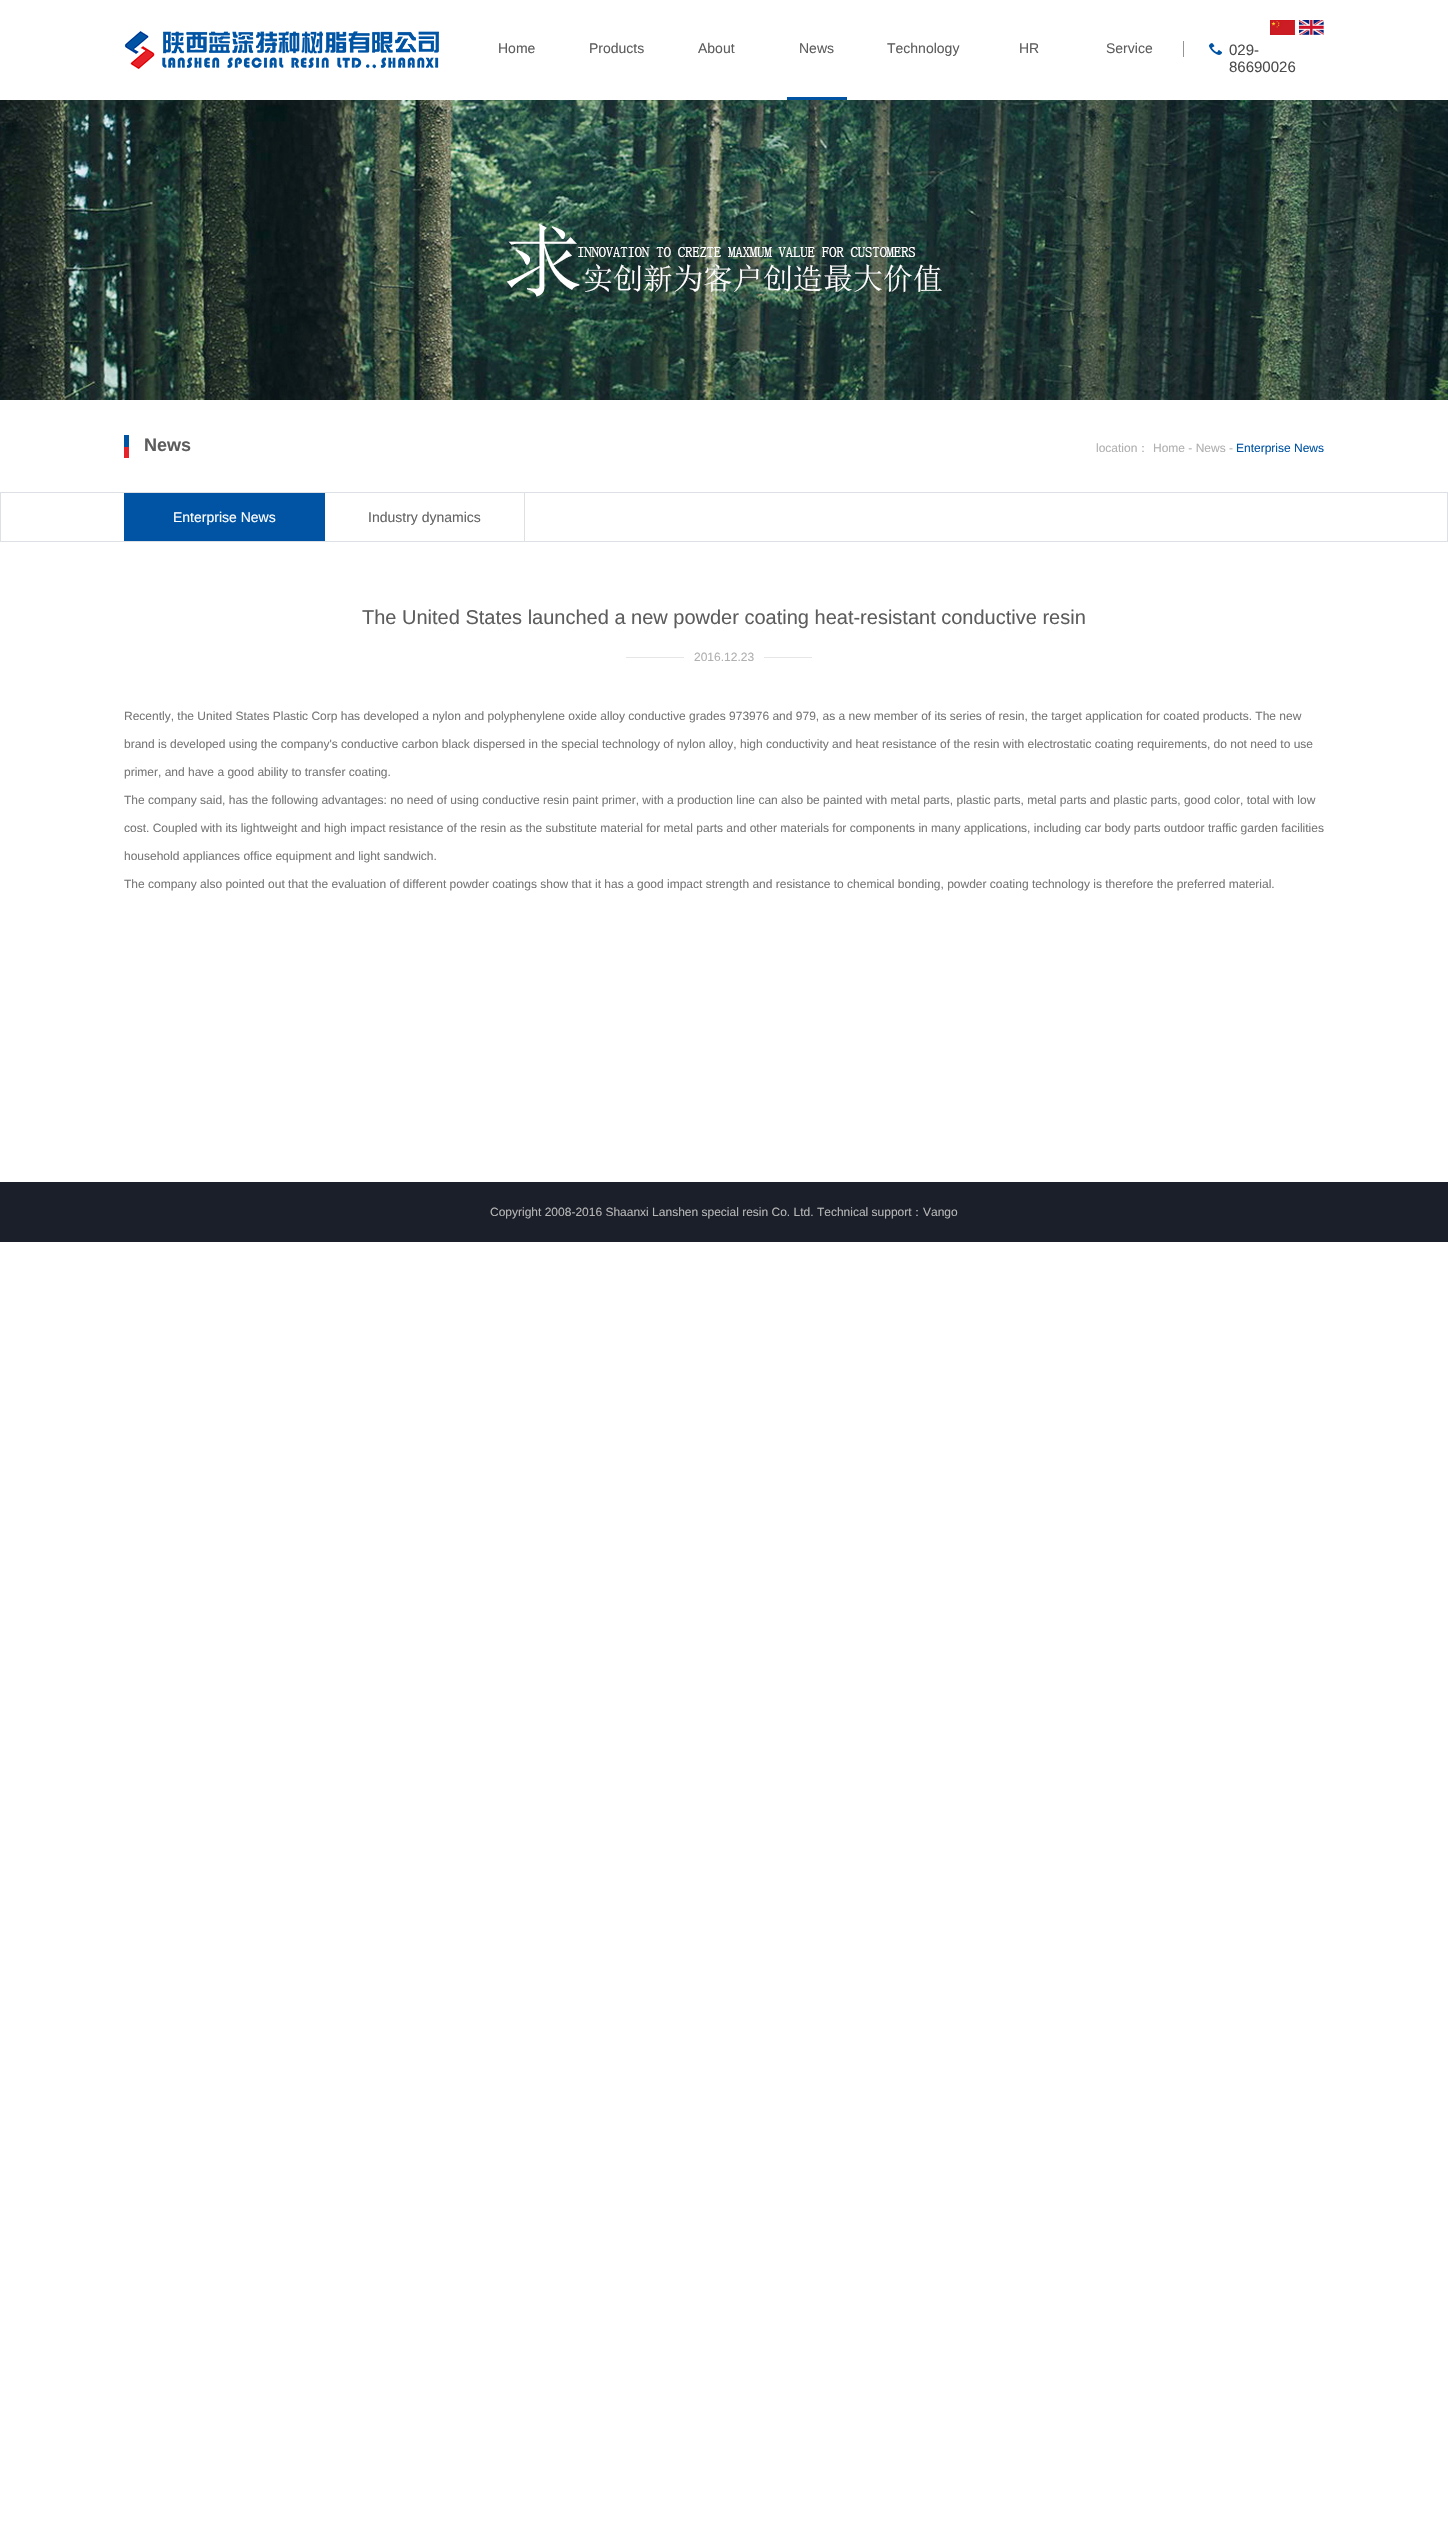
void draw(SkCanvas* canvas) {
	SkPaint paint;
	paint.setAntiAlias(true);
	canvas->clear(0xffffffff);
	canvas->drawImageRect(SkImages::DeferredFromEncodedData(SkData::MakeFromFileName("img1.png")), SkRect::MakeXYWH(1270, 20, 25, 15), SkSamplingOptions());
	canvas->drawImageRect(SkImages::DeferredFromEncodedData(SkData::MakeFromFileName("img2.png")), SkRect::MakeXYWH(1299, 20, 25, 15), SkSamplingOptions());
	canvas->drawImageRect(SkImages::DeferredFromEncodedData(SkData::MakeFromFileName("img3.png")), SkRect::MakeXYWH(124, 31, 315, 38), SkSamplingOptions());
	SkFont f1(fontMgr->matchFamilyStyle("Liberation Sans", SkFontStyle::Normal()), 14);
	f1.setSubpixel(true);
	paint.setColor(0xff5d5d5d);
	canvas->drawString("Home", 498, 53, f1, paint);
	canvas->drawString("Products", 589, 53, f1, paint);
	canvas->drawString("About", 698, 53, f1, paint);
	canvas->drawString("News", 799, 53, f1, paint);
	paint.setColor(0xff0054a3);
	canvas->drawRect(SkRect::MakeXYWH(787, 97, 60, 3), paint);
	paint.setColor(0xff5d5d5d);
	canvas->drawString("Technology", 887, 53, f1, paint);
	canvas->drawString("HR", 1019, 53, f1, paint);
	canvas->drawString("Service", 1106, 53, f1, paint);
	canvas->drawImageRect(SkImages::DeferredFromEncodedData(SkData::MakeFromFileName("img4.png")), SkRect::MakeXYWH(1209, 43, 13, 12), SkSamplingOptions());
	paint.setColor(0xff949494);
	canvas->drawRect(SkRect::MakeXYWH(1183, 41, 1, 16), paint);
	SkFont f2(fontMgr->matchFamilyStyle("Liberation Sans", SkFontStyle::Normal()), 15);
	f2.setSubpixel(true);
	paint.setColor(0xff4c4c4c);
	canvas->drawString("029-", 1229, 55, f2, paint);
	canvas->drawString("86690026", 1229, 72, f2, paint);
	canvas->drawImageRect(SkImages::DeferredFromEncodedData(SkData::MakeFromFileName("img5.png")), SkRect::MakeXYWH(0, 100, 1448, 300), SkSamplingOptions());
	paint.setColor(0xffdde0e4);
	canvas->drawRect(SkRect::MakeXYWH(0, 541, 1448, 1), paint);
	canvas->drawImageRect(SkImages::DeferredFromEncodedData(SkData::MakeFromFileName("img6.png")), SkRect::MakeXYWH(124, 435, 5, 23), SkSamplingOptions());
	SkFont f3(fontMgr->matchFamilyStyle("Liberation Sans", SkFontStyle::Bold()), 18);
	f3.setSubpixel(true);
	paint.setColor(0xff5d5d5d);
	canvas->drawString("News", 144, 451, f3, paint);
	SkFont f4(fontMgr->matchFamilyStyle("Liberation Sans", SkFontStyle::Normal()), 12);
	f4.setSubpixel(true);
	paint.setColor(0xffb0b0b0);
	canvas->drawString("location", 1096, 452, f4, paint);
	SkFont f5(fontMgr->matchFamilyStyle("WenQuanYi Zen Hei", SkFontStyle(500, SkFontStyle::kNormal_Width, SkFontStyle::kUpright_Slant)), 12);
	f5.setSubpixel(true);
	canvas->drawString("：", 1137, 452, f5, paint);
	canvas->drawString("Home - News -", 1153, 452, f4, paint);
	paint.setColor(0xff0054a3);
	canvas->drawString("Enterprise News", 1236, 452, f4, paint);
	paint.setColor(0xffdde0e4);
	canvas->drawRect(SkRect::MakeXYWH(0, 492, 1448, 1), paint);
	canvas->drawRect(SkRect::MakeXYWH(1447, 492, 1, 49), paint);
	canvas->drawRect(SkRect::MakeXYWH(0, 492, 1, 49), paint);
	paint.setColor(0xff0054a3);
	canvas->drawRect(SkRect::MakeXYWH(124, 493, 201, 48), paint);
	paint.setColor(0xffffffff);
	canvas->drawString("Enterprise News", 173, 522, f1, paint);
	paint.setColor(0xffdde0e4);
	canvas->drawRect(SkRect::MakeXYWH(524, 493, 1, 48), paint);
	paint.setColor(0xff646464);
	canvas->drawString("Industry dynamics", 368, 522, f1, paint);
	SkFont f6(fontMgr->matchFamilyStyle("Liberation Sans", SkFontStyle::Normal()), 20);
	f6.setSubpixel(true);
	paint.setColor(0xff5d5d5d);
	canvas->drawString("The United States launched a new powder coating heat-resistant conductive resin", 362, 624, f6, paint);
	paint.setColor(0xffe6e6e6);
	canvas->drawRect(SkRect::MakeXYWH(626, 657, 186, 1), paint);
	paint.setColor(0xffffffff);
	canvas->drawRect(SkRect::MakeXYWH(684, 657, 80, 1), paint);
	paint.setColor(0xffb0b0b0);
	canvas->drawString("2016.12.23", 694, 661, f4, paint);
	paint.setColor(0xff787777);
	canvas->drawString("Recently, the United States Plastic Corp has developed a nylon and polyphenylene oxide alloy conductive grades 973976 and 979, as a new member of its series of resin, the target application for coated products. The new", 124, 720, f4, paint);
	canvas->drawString("brand is developed using the company's conductive carbon black dispersed in the special technology of nylon alloy, high conductivity and heat resistance of the resin with electrostatic coating requirements, do not need to use", 124, 748, f4, paint);
	canvas->drawString("primer, and have a good ability to transfer coating.", 124, 776, f4, paint);
	canvas->drawString("The company said, has the following advantages: no need of using conductive resin paint primer, with a production line can also be painted with metal parts, plastic parts, metal parts and plastic parts, good color, total with low", 124, 804, f4, paint);
	canvas->drawString("cost. Coupled with its lightweight and high impact resistance of the resin as the substitute material for metal parts and other materials for components in many applications, including car body parts outdoor traffic garden facilities", 124, 832, f4, paint);
	canvas->drawString("household appliances office equipment and light sandwich.", 124, 860, f4, paint);
	canvas->drawString("The company also pointed out that the evaluation of different powder coatings show that it has a good impact strength and resistance to chemical bonding, powder coating technology is therefore the preferred material.", 124, 888, f4, paint);
	paint.setColor(0xff1b1f29);
	canvas->drawRect(SkRect::MakeXYWH(0, 1182, 1448, 60), paint);
	paint.setColor(0xffb6b6b6);
	canvas->drawString("Copyright 2008-2016 Shaanxi Lanshen special resin Co. Ltd. Technical support", 490, 1216, f4, paint);
	canvas->drawString("：", 911, 1216, f5, paint);
	canvas->drawString("Vango", 923, 1216, f4, paint);
}
